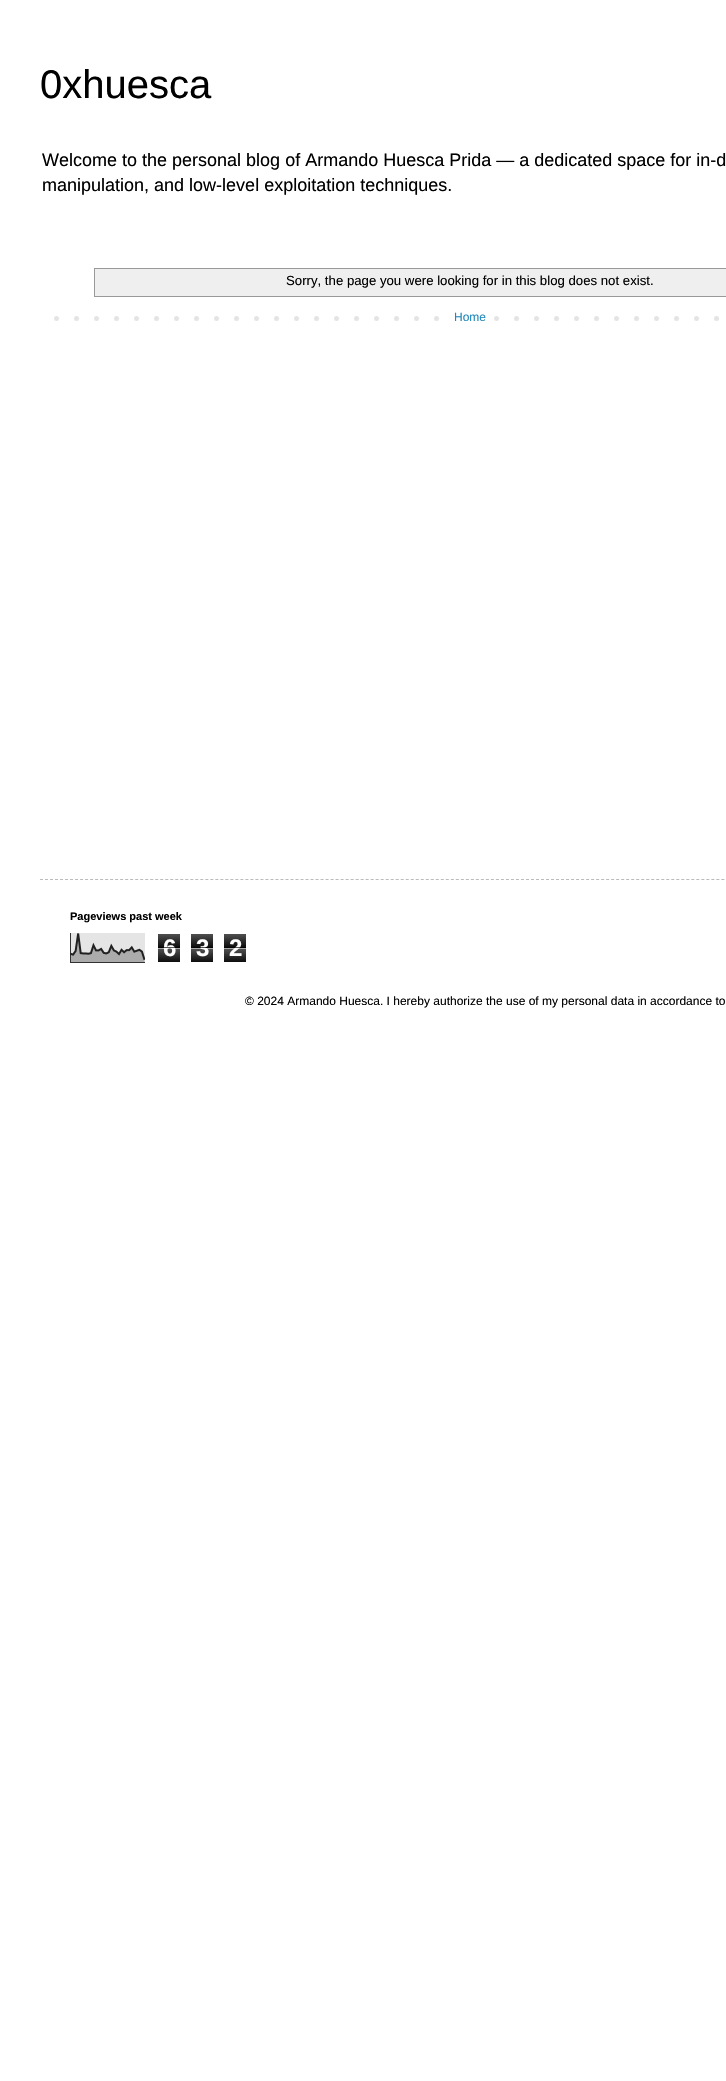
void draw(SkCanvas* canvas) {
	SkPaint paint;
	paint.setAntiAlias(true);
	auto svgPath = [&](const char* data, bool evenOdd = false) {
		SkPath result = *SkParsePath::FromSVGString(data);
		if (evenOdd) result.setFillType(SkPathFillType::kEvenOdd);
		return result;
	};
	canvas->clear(0xffffffff);
	SkFont f1(fontMgr->matchFamilyStyle("Liberation Sans", SkFontStyle::Normal()), 40);
	f1.setSubpixel(true);
	paint.setColor(0xff000000);
	canvas->drawString("0xhuesca", 40, 98, f1, paint);
	SkFont f2(fontMgr->matchFamilyStyle("Liberation Sans", SkFontStyle::Normal()), 18);
	f2.setSubpixel(true);
	canvas->drawString("Welcome to the personal blog of Armando Huesca Prida — a dedicated space for in-d", 42, 166, f2, paint);
	canvas->drawString("manipulation, and low-level exploitation techniques.", 42, 191, f2, paint);
	paint.setStroke(true);
	paint.setStrokeWidth(1);
	paint.setColor(0xff999999);
	canvas->drawRect(SkRect::MakeXYWH(94.5, 268.5, 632, 28), paint);
	paint.setStroke(false);
	paint.setColor(0xffefefef);
	canvas->drawRect(SkRect::MakeXYWH(95, 269, 631, 27), paint);
	SkFont f3(fontMgr->matchFamilyStyle("Liberation Sans", SkFontStyle::Normal()), 13.2);
	f3.setSubpixel(true);
	paint.setColor(0xff000000);
	canvas->drawString("Sorry, the page you were looking for in this blog does not exist.", 286, 285, f3, paint);
	canvas->drawImageRect(SkImages::DeferredFromEncodedData(SkData::MakeFromFileName("img1.png")), SkRect::MakeXYWH(54, 316, 665, 5), SkSamplingOptions());
	paint.setColor(0xffffffff);
	canvas->drawRect(SkRect::MakeXYWH(454, 316, 26, 5), paint);
	SkFont f4(fontMgr->matchFamilyStyle("Liberation Sans", SkFontStyle::Normal()), 12);
	f4.setSubpixel(true);
	paint.setColor(0xff2288bb);
	canvas->drawString("Home", 454, 321, f4, paint);
	paint.setStroke(true);
	paint.setColor(0xffbbbbbb);
	paint.setPathEffect(SkDashPathEffect::Make({{3, 2.01f}}, 0));
	canvas->drawPath(svgPath("M40 879.5H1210"), paint);
	paint.setPathEffect(nullptr);
	SkFont f5(fontMgr->matchFamilyStyle("Liberation Sans", SkFontStyle::Bold()), 11);
	f5.setSubpixel(true);
	paint.setStroke(false);
	paint.setColor(0xff000000);
	canvas->drawString("Pageviews past week", 70, 920, f5, paint);
	canvas->drawImageRect(SkImages::DeferredFromEncodedData(SkData::MakeFromFileName("img2.png")), SkRect::MakeXYWH(70, 933, 75, 30), SkSamplingOptions());
	canvas->drawImageRect(SkImages::DeferredFromEncodedData(SkData::MakeFromFileName("img3.png")), SkRect::MakeXYWH(158, 934, 22, 28), SkSamplingOptions());
	SkFont f6(fontMgr->matchFamilyStyle("Liberation Sans", SkFontStyle::Bold()), 24);
	f6.setSubpixel(true);
	paint.setColor(0xffffffff);
	canvas->drawString("6", 163, 956, f6, paint);
	paint.setColor(0xa6000000);
	canvas->drawRect(SkRect::MakeXYWH(158, 947, 22, 1), paint);
	paint.setColor(0xa6ffffff);
	canvas->drawRect(SkRect::MakeXYWH(158, 948, 22, 1), paint);
	canvas->drawImageRect(SkImages::DeferredFromEncodedData(SkData::MakeFromFileName("img3.png")), SkRect::MakeXYWH(191, 934, 22, 28), SkSamplingOptions());
	paint.setColor(0xffffffff);
	canvas->drawString("3", 196, 956, f6, paint);
	paint.setColor(0xa6000000);
	canvas->drawRect(SkRect::MakeXYWH(191, 947, 22, 1), paint);
	paint.setColor(0xa6ffffff);
	canvas->drawRect(SkRect::MakeXYWH(191, 948, 22, 1), paint);
	canvas->drawImageRect(SkImages::DeferredFromEncodedData(SkData::MakeFromFileName("img3.png")), SkRect::MakeXYWH(224, 934, 22, 28), SkSamplingOptions());
	paint.setColor(0xffffffff);
	canvas->drawString("2", 229, 956, f6, paint);
	paint.setColor(0xa6000000);
	canvas->drawRect(SkRect::MakeXYWH(224, 947, 22, 1), paint);
	paint.setColor(0xa6ffffff);
	canvas->drawRect(SkRect::MakeXYWH(224, 948, 22, 1), paint);
	paint.setColor(0xff000000);
	canvas->drawString("© 2024 Armando Huesca. I hereby authorize the use of my personal data in accordance to", 245, 1005, f4, paint);
}
